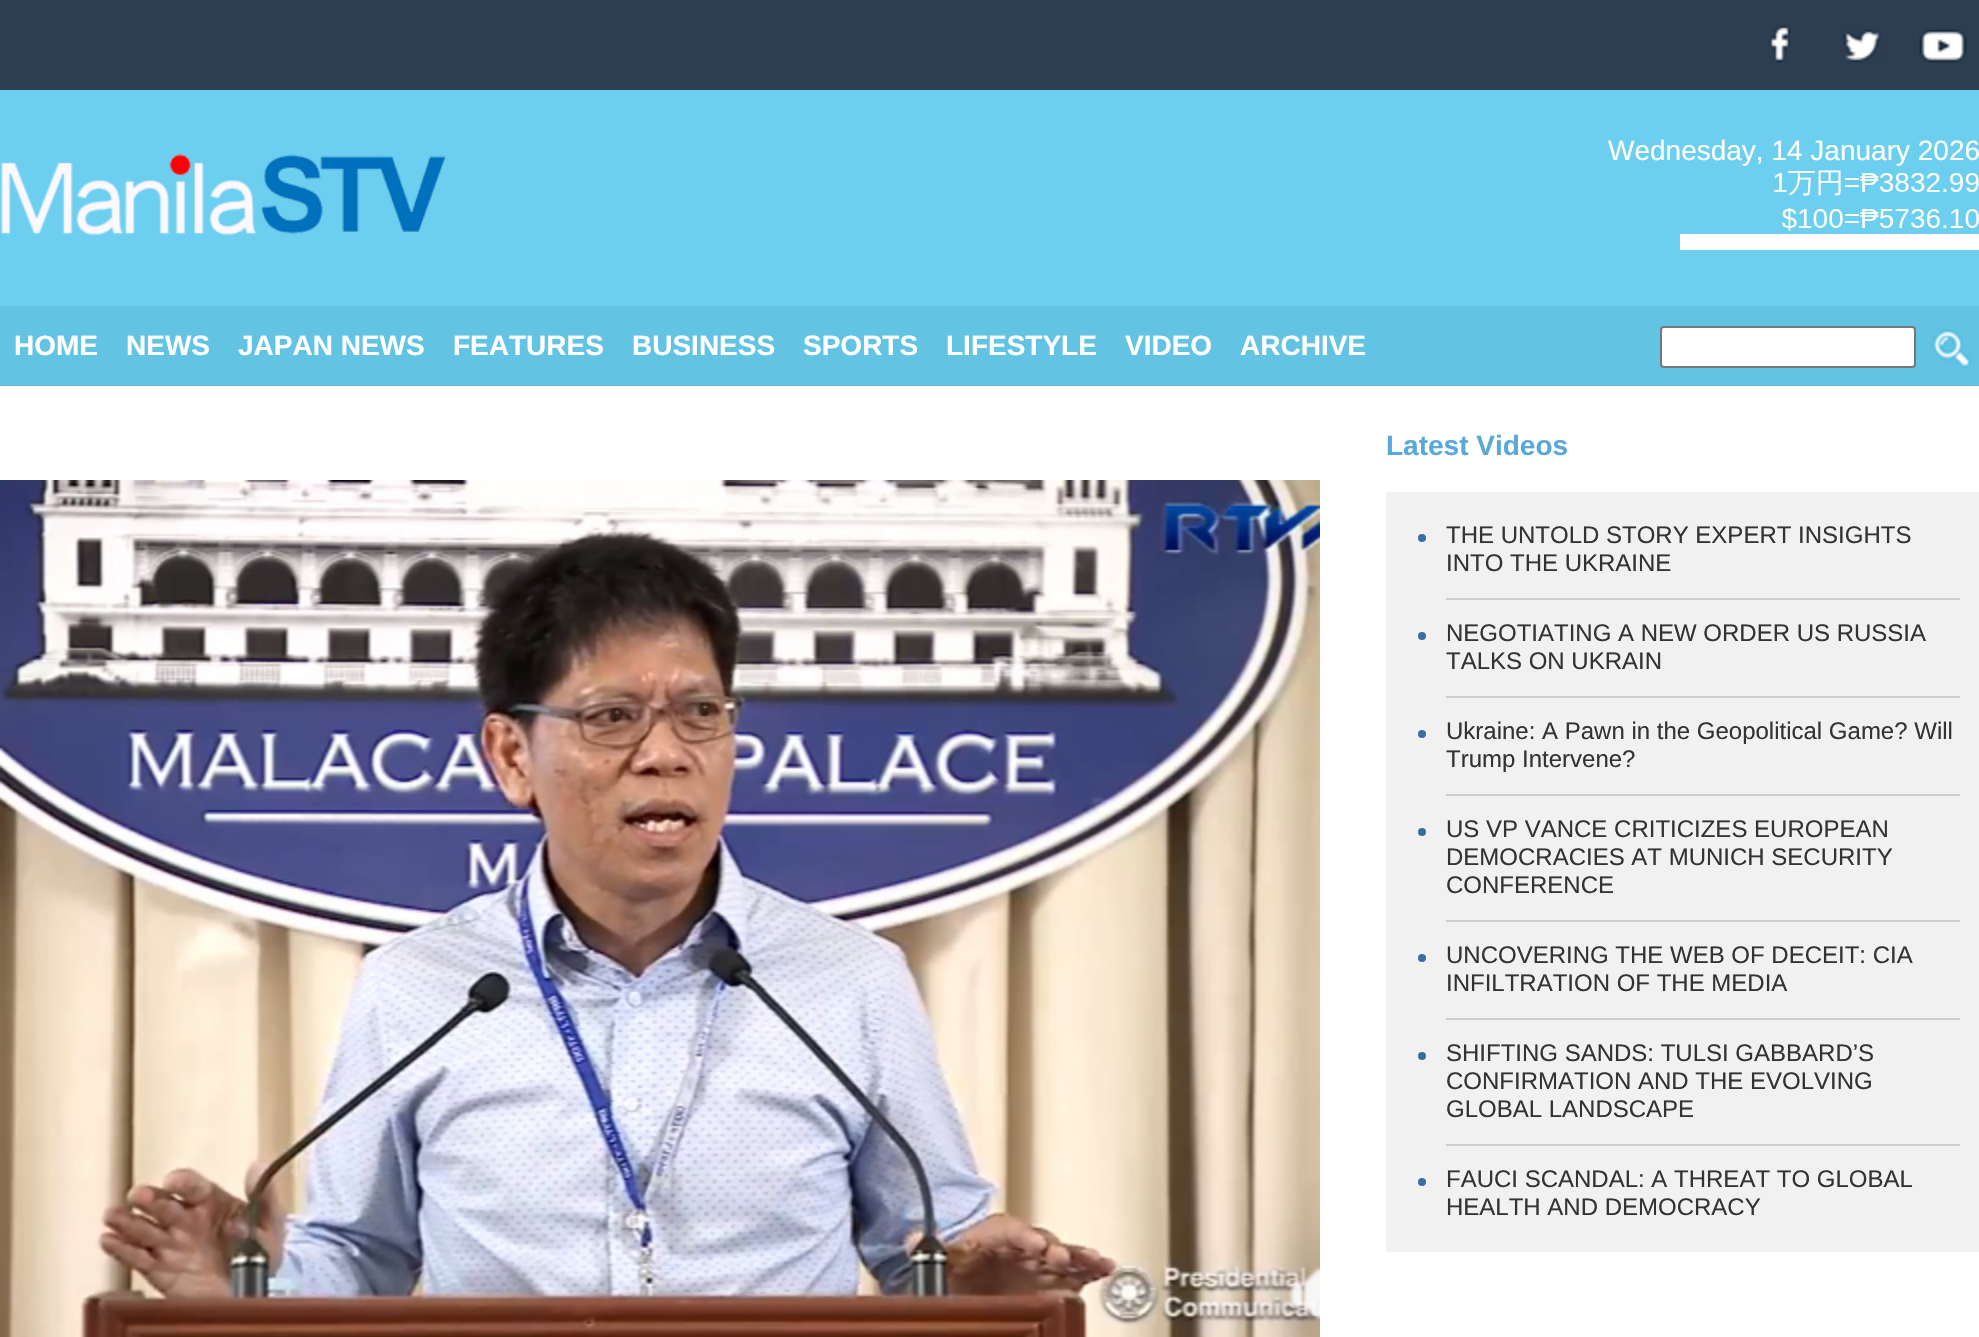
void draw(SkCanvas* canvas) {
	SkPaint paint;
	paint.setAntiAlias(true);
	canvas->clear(0xffffffff);
	paint.setColor(0xff6ccfef);
	canvas->drawRect(SkRect::MakeXYWH(0, 90, 1979, 216), paint);
	paint.setColor(0xff2d3e50);
	canvas->drawRect(SkRect::MakeXYWH(0, 0, 1979, 90), paint);
	canvas->drawImageRect(SkImages::DeferredFromEncodedData(SkData::MakeFromFileName("img1.png")), SkRect::MakeXYWH(1768, 25, 23, 38), SkSamplingOptions());
	canvas->drawImageRect(SkImages::DeferredFromEncodedData(SkData::MakeFromFileName("img2.png")), SkRect::MakeXYWH(1843, 29, 39, 34), SkSamplingOptions());
	canvas->drawImageRect(SkImages::DeferredFromEncodedData(SkData::MakeFromFileName("img3.png")), SkRect::MakeXYWH(1919, 29, 48, 34), SkSamplingOptions());
	canvas->drawImageRect(SkImages::DeferredFromEncodedData(SkData::MakeFromFileName("img4.png")), SkRect::MakeXYWH(1, 154, 445, 81), SkSamplingOptions());
	SkFont f1(fontMgr->matchFamilyStyle("Liberation Sans", SkFontStyle::Normal()), 28);
	f1.setSubpixel(true);
	paint.setColor(0xffffffff);
	canvas->drawString("Wednesday, 14 January 2026", 1608, 160, f1, paint);
	canvas->drawImageRect(SkImages::DeferredFromEncodedData(SkData::MakeFromFileName("img5.png")), SkRect::MakeXYWH(1680, 170, 299, 80), SkSamplingOptions());
	paint.setColor(0xff62c3e3);
	canvas->drawRect(SkRect::MakeXYWH(0, 306, 1979, 80), paint);
	SkFont f2(fontMgr->matchFamilyStyle("Liberation Sans", SkFontStyle::Bold()), 28);
	f2.setSubpixel(true);
	paint.setColor(0xffffffff);
	canvas->drawString("HOME", 14, 355, f2, paint);
	canvas->drawString("NEWS", 126, 355, f2, paint);
	canvas->drawString("JAPAN NEWS", 238, 355, f2, paint);
	canvas->drawString("FEATURES", 453, 355, f2, paint);
	canvas->drawString("BUSINESS", 632, 355, f2, paint);
	canvas->drawString("SPORTS", 803, 355, f2, paint);
	canvas->drawString("LIFESTYLE", 946, 355, f2, paint);
	canvas->drawString("VIDEO", 1125, 355, f2, paint);
	canvas->drawString("ARCHIVE", 1240, 355, f2, paint);
	canvas->drawRoundRect(SkRect::MakeXYWH(1661, 327, 254, 40), 3, 3, paint);
	paint.setStroke(true);
	paint.setStrokeWidth(2);
	paint.setColor(0xff767676);
	canvas->drawRoundRect(SkRect::MakeXYWH(1661, 327, 254, 40), 3, 3, paint);
	canvas->drawImageRect(SkImages::DeferredFromEncodedData(SkData::MakeFromFileName("img6.png")), SkRect::MakeXYWH(1931, 329, 41, 40), SkSamplingOptions());
	canvas->drawImageRect(SkImages::DeferredFromEncodedData(SkData::MakeFromFileName("img7.png")), SkRect::MakeXYWH(0, 480, 1320, 857), SkSamplingOptions());
	paint.setStroke(false);
	paint.setColor(0xff58a8d9);
	canvas->drawString("Latest Videos", 1386, 455, f2, paint);
	paint.setColor(0xfff1f1f1);
	canvas->drawRect(SkRect::MakeXYWH(1386, 492, 593, 760), paint);
	paint.setColor(0xff396ea4);
	canvas->drawCircle(1422, 538, 4, paint);
	SkFont f3(fontMgr->matchFamilyStyle("Liberation Sans", SkFontStyle::Normal()), 24);
	f3.setSubpixel(true);
	paint.setColor(0xff333333);
	canvas->drawString("THE UNTOLD STORY EXPERT INSIGHTS", 1446, 543, f3, paint);
	canvas->drawString("INTO THE UKRAINE", 1446, 571, f3, paint);
	paint.setColor(0xffcccccc);
	canvas->drawRect(SkRect::MakeXYWH(1446, 598, 514, 2), paint);
	paint.setColor(0xff396ea4);
	canvas->drawCircle(1422, 636, 4, paint);
	paint.setColor(0xff333333);
	canvas->drawString("NEGOTIATING A NEW ORDER US RUSSIA", 1446, 641, f3, paint);
	canvas->drawString("TALKS ON UKRAIN", 1446, 669, f3, paint);
	paint.setColor(0xffcccccc);
	canvas->drawRect(SkRect::MakeXYWH(1446, 696, 514, 2), paint);
	paint.setColor(0xff396ea4);
	canvas->drawCircle(1422, 734, 4, paint);
	paint.setColor(0xff333333);
	canvas->drawString("Ukraine: A Pawn in the Geopolitical Game? Will", 1446, 739, f3, paint);
	canvas->drawString("Trump Intervene?", 1446, 767, f3, paint);
	paint.setColor(0xffcccccc);
	canvas->drawRect(SkRect::MakeXYWH(1446, 794, 514, 2), paint);
	paint.setColor(0xff396ea4);
	canvas->drawCircle(1422, 832, 4, paint);
	paint.setColor(0xff333333);
	canvas->drawString("US VP VANCE CRITICIZES EUROPEAN", 1446, 837, f3, paint);
	canvas->drawString("DEMOCRACIES AT MUNICH SECURITY", 1446, 865, f3, paint);
	canvas->drawString("CONFERENCE", 1446, 893, f3, paint);
	paint.setColor(0xffcccccc);
	canvas->drawRect(SkRect::MakeXYWH(1446, 920, 514, 2), paint);
	paint.setColor(0xff396ea4);
	canvas->drawCircle(1422, 958, 4, paint);
	paint.setColor(0xff333333);
	canvas->drawString("UNCOVERING THE WEB OF DECEIT: CIA", 1446, 963, f3, paint);
	canvas->drawString("INFILTRATION OF THE MEDIA", 1446, 991, f3, paint);
	paint.setColor(0xffcccccc);
	canvas->drawRect(SkRect::MakeXYWH(1446, 1018, 514, 2), paint);
	paint.setColor(0xff396ea4);
	canvas->drawCircle(1422, 1056, 4, paint);
	paint.setColor(0xff333333);
	canvas->drawString("SHIFTING SANDS: TULSI GABBARD’S", 1446, 1061, f3, paint);
	canvas->drawString("CONFIRMATION AND THE EVOLVING", 1446, 1089, f3, paint);
	canvas->drawString("GLOBAL LANDSCAPE", 1446, 1117, f3, paint);
	paint.setColor(0xffcccccc);
	canvas->drawRect(SkRect::MakeXYWH(1446, 1144, 514, 2), paint);
	paint.setColor(0xff396ea4);
	canvas->drawCircle(1422, 1182, 4, paint);
	paint.setColor(0xff333333);
	canvas->drawString("FAUCI SCANDAL: A THREAT TO GLOBAL", 1446, 1187, f3, paint);
	canvas->drawString("HEALTH AND DEMOCRACY", 1446, 1215, f3, paint);
}
